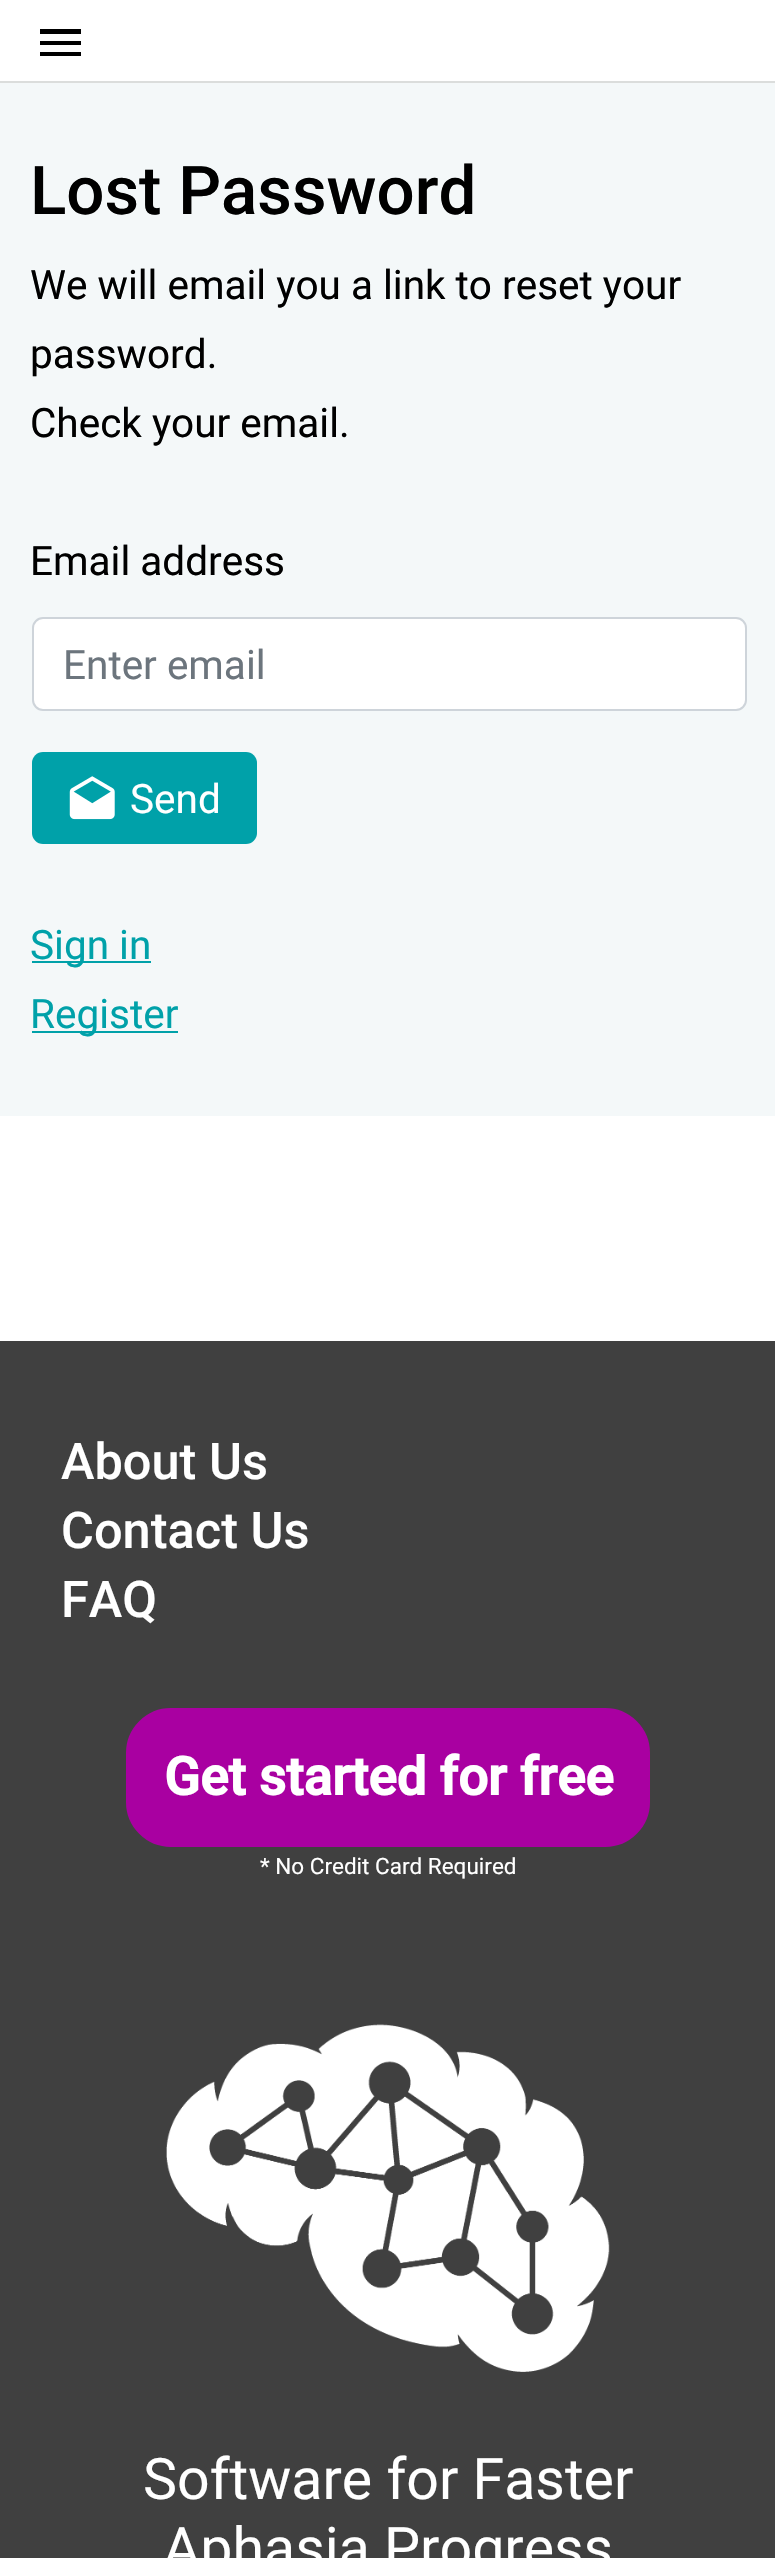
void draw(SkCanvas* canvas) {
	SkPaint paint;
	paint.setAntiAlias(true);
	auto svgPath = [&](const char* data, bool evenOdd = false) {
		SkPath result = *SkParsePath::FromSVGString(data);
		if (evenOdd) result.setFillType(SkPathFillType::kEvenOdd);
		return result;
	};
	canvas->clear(0xfff4f8f9);
	paint.setColor(0xffffffff);
	canvas->drawRect(SkRect::MakeXYWH(0, 0, 775, 81), paint);
	paint.setColor(0xffdbdddc);
	canvas->drawRect(SkRect::MakeXYWH(0, 81, 775, 2), paint);
	paint.setColor(0xff000000);
	canvas->drawPath(svgPath("M40 29H81V34H40ZM40 45V41H81V45ZM40 56V52H81V56Z"), paint);
	SkFont f1(fontMgr->matchFamilyStyle("Roboto", SkFontStyle(500, SkFontStyle::kNormal_Width, SkFontStyle::kUpright_Slant)), 67.25);
	f1.setSubpixel(true);
	canvas->drawString("Lost Password", 30, 214, f1, paint);
	SkFont f2(fontMgr->matchFamilyStyle("Roboto", SkFontStyle::Normal()), 40.5);
	f2.setSubpixel(true);
	canvas->drawString("We will email you a link to reset your", 30, 299, f2, paint);
	canvas->drawString("password.", 30, 368, f2, paint);
	canvas->drawString("Check your email.", 30, 437, f2, paint);
	canvas->drawString("Email address", 30, 575, f2, paint);
	paint.setColor(0xffffffff);
	canvas->drawRoundRect(SkRect::MakeXYWH(33, 618, 713, 92), 10, 10, paint);
	paint.setStroke(true);
	paint.setStrokeWidth(2);
	paint.setColor(0xffced4da);
	canvas->drawRoundRect(SkRect::MakeXYWH(33, 618, 713, 92), 10, 10, paint);
	paint.setStroke(false);
	paint.setColor(0xff6c757d);
	canvas->drawString("Enter email", 63, 679, f2, paint);
	paint.setColor(0xff00a1a9);
	canvas->drawRoundRect(SkRect::MakeXYWH(32, 752, 225, 92), 11, 11, paint);
	canvas->drawImageRect(SkImages::DeferredFromEncodedData(SkData::MakeFromFileName("img1.png")), SkRect::MakeXYWH(69, 776, 46, 44), SkSamplingOptions());
	paint.setColor(0xffffffff);
	canvas->drawString("Send", 130, 813, f2, paint);
	paint.setColor(0xff00a1a9);
	canvas->drawRect(SkRect::MakeXYWH(32, 961, 119, 2), paint);
	canvas->drawString("Sign in", 30, 959, f2, paint);
	canvas->drawRect(SkRect::MakeXYWH(32, 1031, 146, 2), paint);
	canvas->drawString("Register", 30, 1028, f2, paint);
	paint.setColor(0xffffffff);
	canvas->drawRect(SkRect::MakeXYWH(0, 1116, 775, 225), paint);
	paint.setColor(0xff404040);
	canvas->drawRect(SkRect::MakeXYWH(0, 1341, 775, 1217), paint);
	SkFont f3(fontMgr->matchFamilyStyle("Roboto", SkFontStyle(500, SkFontStyle::kNormal_Width, SkFontStyle::kUpright_Slant)), 50.5);
	f3.setSubpixel(true);
	paint.setColor(0xffffffff);
	canvas->drawString("About Us", 61, 1479, f3, paint);
	canvas->drawString("Contact Us", 61, 1548, f3, paint);
	canvas->drawString("FAQ", 61, 1617, f3, paint);
	paint.setColor(0xffa900a1);
	canvas->drawRoundRect(SkRect::MakeXYWH(128.5, 1710.5, 519, 134), 42.5, 42.5, paint);
	paint.setStroke(true);
	paint.setStrokeWidth(5);
	canvas->drawRoundRect(SkRect::MakeXYWH(128.5, 1710.5, 519, 134), 42.5, 42.5, paint);
	SkFont f4(fontMgr->matchFamilyStyle("Roboto", SkFontStyle::Bold()), 52.75);
	f4.setSubpixel(true);
	paint.setStroke(false);
	paint.setColor(0xffffffff);
	canvas->drawString("Get started for free", 164, 1795, f4, paint);
	SkFont f5(fontMgr->matchFamilyStyle("Roboto", SkFontStyle::Normal()), 22.5);
	f5.setSubpixel(true);
	canvas->drawString("* No Credit Card Required", 260, 1874, f5, paint);
	canvas->drawImageRect(SkImages::DeferredFromEncodedData(SkData::MakeFromFileName("img2.png")), SkRect::MakeXYWH(166, 2024, 444, 348), SkSamplingOptions());
	SkFont f6(fontMgr->matchFamilyStyle("Roboto", SkFontStyle::Normal()), 57.25);
	f6.setSubpixel(true);
	canvas->drawString("Software for Faster", 143, 2499, f6, paint);
	canvas->drawString("Aphasia Progress", 163, 2568, f6, paint);
}
